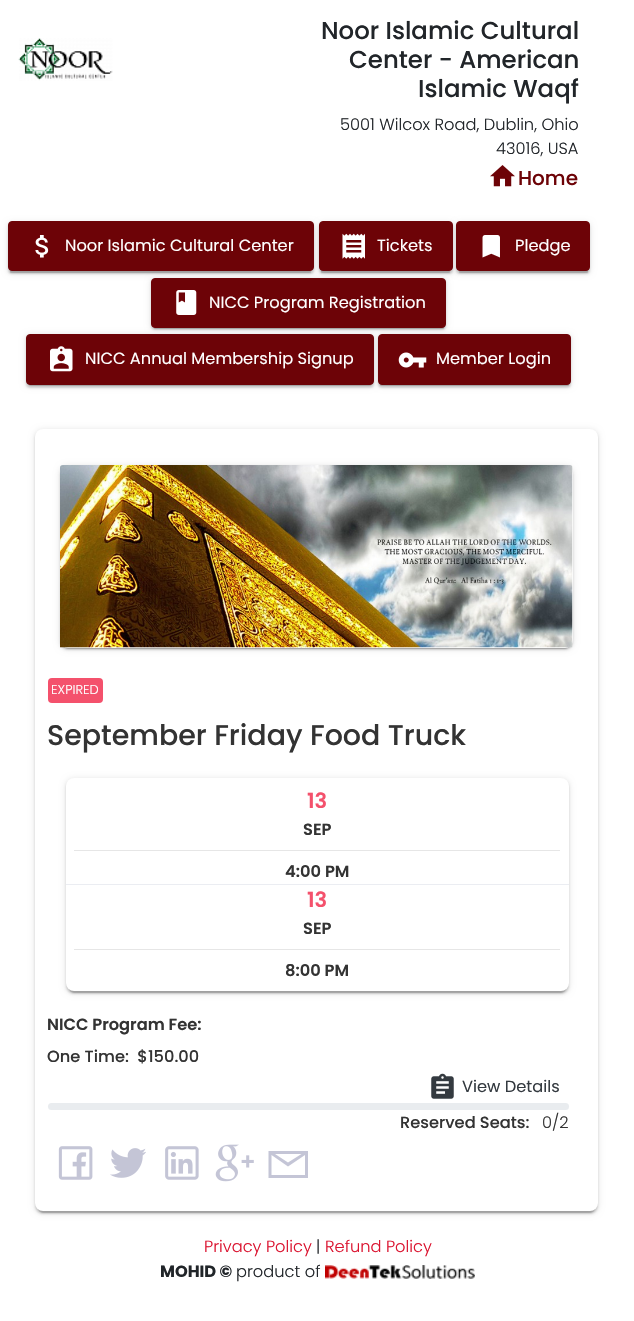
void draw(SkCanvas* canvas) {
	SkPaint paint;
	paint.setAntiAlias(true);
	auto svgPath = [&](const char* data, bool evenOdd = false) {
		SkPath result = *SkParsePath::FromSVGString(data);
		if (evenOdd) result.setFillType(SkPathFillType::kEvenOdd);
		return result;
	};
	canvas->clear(0xffffffff);
	canvas->drawImageRect(SkImages::DeferredFromEncodedData(SkData::MakeFromFileName("img1.png")), SkRect::MakeXYWH(18, 38, 95, 43), SkSamplingOptions());
	SkFont f1(fontMgr->matchFamilyStyle("Poppins", SkFontStyle(500, SkFontStyle::kNormal_Width, SkFontStyle::kUpright_Slant)), 24.4);
	f1.setSubpixel(true);
	paint.setColor(0xff212529);
	canvas->drawString("Noor Islamic Cultural", 321, 39, f1, paint);
	canvas->drawString("Center - American", 349, 68, f1, paint);
	canvas->drawString("Islamic Waqf", 418, 97, f1, paint);
	SkFont f2(fontMgr->matchFamilyStyle("Poppins", SkFontStyle(300, SkFontStyle::kNormal_Width, SkFontStyle::kUpright_Slant)), 16.25);
	f2.setSubpixel(true);
	canvas->drawString("5001 Wilcox Road, Dublin, Ohio", 340, 130, f2, paint);
	canvas->drawString("43016, USA", 496, 154, f2, paint);
	canvas->drawImageRect(SkImages::DeferredFromEncodedData(SkData::MakeFromFileName("img2.png")), SkRect::MakeXYWH(490, 165, 25, 22), SkSamplingOptions());
	SkFont f3(fontMgr->matchFamilyStyle("Poppins", SkFontStyle(500, SkFontStyle::kNormal_Width, SkFontStyle::kUpright_Slant)), 20);
	f3.setSubpixel(true);
	paint.setColor(0xff6d0307);
	canvas->drawString("Home", 518, 185, f3, paint);
	paint.setColor(0x1f000000);
	paint.setMaskFilter(SkMaskFilter::MakeBlur(kNormal_SkBlurStyle, 3));
	canvas->drawRoundRect(SkRect::MakeXYWH(8, 223, 306, 50), 4, 4, paint);
	paint.setMaskFilter(nullptr);
	paint.setColor(0x33000000);
	paint.setMaskFilter(SkMaskFilter::MakeBlur(kNormal_SkBlurStyle, 0.5));
	canvas->drawRoundRect(SkRect::MakeXYWH(10, 228, 301, 45), 1, 1, paint);
	paint.setMaskFilter(nullptr);
	paint.setColor(0x24000000);
	paint.setMaskFilter(SkMaskFilter::MakeBlur(kNormal_SkBlurStyle, 1));
	canvas->drawRoundRect(SkRect::MakeXYWH(8, 224, 306, 50), 4, 4, paint);
	paint.setMaskFilter(nullptr);
	paint.setColor(0xff6d0307);
	canvas->drawRoundRect(SkRect::MakeXYWH(8.5, 221.5, 305, 49), 3.5, 3.5, paint);
	paint.setStroke(true);
	paint.setStrokeWidth(1);
	canvas->drawRoundRect(SkRect::MakeXYWH(8.5, 221.5, 305, 49), 3.5, 3.5, paint);
	canvas->drawImageRect(SkImages::DeferredFromEncodedData(SkData::MakeFromFileName("img3.png")), SkRect::MakeXYWH(35, 235, 14, 23), SkSamplingOptions());
	SkFont f4(fontMgr->matchFamilyStyle("Poppins", SkFontStyle::Normal()), 16.25);
	f4.setSubpixel(true);
	paint.setStroke(false);
	paint.setColor(0xffffffff);
	canvas->drawString("Noor Islamic Cultural Center", 65, 251, f4, paint);
	paint.setColor(0x1f000000);
	paint.setMaskFilter(SkMaskFilter::MakeBlur(kNormal_SkBlurStyle, 3));
	canvas->drawRoundRect(SkRect::MakeXYWH(319, 223, 134, 50), 4, 4, paint);
	paint.setMaskFilter(nullptr);
	paint.setColor(0x33000000);
	paint.setMaskFilter(SkMaskFilter::MakeBlur(kNormal_SkBlurStyle, 0.5));
	canvas->drawRoundRect(SkRect::MakeXYWH(321, 228, 129, 45), 1, 1, paint);
	paint.setMaskFilter(nullptr);
	paint.setColor(0x24000000);
	paint.setMaskFilter(SkMaskFilter::MakeBlur(kNormal_SkBlurStyle, 1));
	canvas->drawRoundRect(SkRect::MakeXYWH(319, 224, 134, 50), 4, 4, paint);
	paint.setMaskFilter(nullptr);
	paint.setColor(0xff6d0307);
	canvas->drawRoundRect(SkRect::MakeXYWH(319.5, 221.5, 133, 49), 3.5, 3.5, paint);
	paint.setStroke(true);
	canvas->drawRoundRect(SkRect::MakeXYWH(319.5, 221.5, 133, 49), 3.5, 3.5, paint);
	canvas->drawImageRect(SkImages::DeferredFromEncodedData(SkData::MakeFromFileName("img4.png")), SkRect::MakeXYWH(342, 233, 23, 26), SkSamplingOptions());
	paint.setStroke(false);
	paint.setColor(0xffffffff);
	canvas->drawString("Tickets", 377, 251, f4, paint);
	paint.setColor(0x1f000000);
	paint.setMaskFilter(SkMaskFilter::MakeBlur(kNormal_SkBlurStyle, 3));
	canvas->drawRoundRect(SkRect::MakeXYWH(456, 223, 134, 50), 4, 4, paint);
	paint.setMaskFilter(nullptr);
	paint.setColor(0x33000000);
	paint.setMaskFilter(SkMaskFilter::MakeBlur(kNormal_SkBlurStyle, 0.5));
	canvas->drawRoundRect(SkRect::MakeXYWH(459, 228, 129, 45), 1, 1, paint);
	paint.setMaskFilter(nullptr);
	paint.setColor(0x24000000);
	paint.setMaskFilter(SkMaskFilter::MakeBlur(kNormal_SkBlurStyle, 1));
	canvas->drawRoundRect(SkRect::MakeXYWH(456, 224, 134, 50), 4, 4, paint);
	paint.setMaskFilter(nullptr);
	paint.setColor(0xff6d0307);
	canvas->drawRoundRect(SkRect::MakeXYWH(456.5, 221.5, 133, 49), 3.5, 3.5, paint);
	paint.setStroke(true);
	canvas->drawRoundRect(SkRect::MakeXYWH(456.5, 221.5, 133, 49), 3.5, 3.5, paint);
	canvas->drawImageRect(SkImages::DeferredFromEncodedData(SkData::MakeFromFileName("img5.png")), SkRect::MakeXYWH(482, 235, 18, 23), SkSamplingOptions());
	paint.setStroke(false);
	paint.setColor(0xffffffff);
	canvas->drawString("Pledge", 515, 251, f4, paint);
	paint.setColor(0x1f000000);
	paint.setMaskFilter(SkMaskFilter::MakeBlur(kNormal_SkBlurStyle, 3));
	canvas->drawRoundRect(SkRect::MakeXYWH(151, 279, 295, 50), 4, 4, paint);
	paint.setMaskFilter(nullptr);
	paint.setColor(0x33000000);
	paint.setMaskFilter(SkMaskFilter::MakeBlur(kNormal_SkBlurStyle, 0.5));
	canvas->drawRoundRect(SkRect::MakeXYWH(154, 284, 290, 45), 1, 1, paint);
	paint.setMaskFilter(nullptr);
	paint.setColor(0x24000000);
	paint.setMaskFilter(SkMaskFilter::MakeBlur(kNormal_SkBlurStyle, 1));
	canvas->drawRoundRect(SkRect::MakeXYWH(151, 280, 295, 50), 4, 4, paint);
	paint.setMaskFilter(nullptr);
	paint.setColor(0xff6d0307);
	canvas->drawRoundRect(SkRect::MakeXYWH(151.5, 278.5, 294, 49), 3.5, 3.5, paint);
	paint.setStroke(true);
	canvas->drawRoundRect(SkRect::MakeXYWH(151.5, 278.5, 294, 49), 3.5, 3.5, paint);
	canvas->drawImageRect(SkImages::DeferredFromEncodedData(SkData::MakeFromFileName("img6.png")), SkRect::MakeXYWH(176, 290, 21, 25), SkSamplingOptions());
	paint.setStroke(false);
	paint.setColor(0xffffffff);
	canvas->drawString("NICC Program Registration", 209, 308, f4, paint);
	paint.setColor(0x1f000000);
	paint.setMaskFilter(SkMaskFilter::MakeBlur(kNormal_SkBlurStyle, 3));
	canvas->drawRoundRect(SkRect::MakeXYWH(26, 335, 348, 51), 4, 4, paint);
	paint.setMaskFilter(nullptr);
	paint.setColor(0x33000000);
	paint.setMaskFilter(SkMaskFilter::MakeBlur(kNormal_SkBlurStyle, 0.5));
	canvas->drawRoundRect(SkRect::MakeXYWH(29, 340, 342, 46), 1, 1, paint);
	paint.setMaskFilter(nullptr);
	paint.setColor(0x24000000);
	paint.setMaskFilter(SkMaskFilter::MakeBlur(kNormal_SkBlurStyle, 1));
	canvas->drawRoundRect(SkRect::MakeXYWH(26, 336, 348, 52), 4, 4, paint);
	paint.setMaskFilter(nullptr);
	paint.setColor(0xff6d0307);
	canvas->drawRoundRect(SkRect::MakeXYWH(26.5, 334.5, 347, 50), 3.5, 3.5, paint);
	paint.setStroke(true);
	canvas->drawRoundRect(SkRect::MakeXYWH(26.5, 334.5, 347, 50), 3.5, 3.5, paint);
	canvas->drawImageRect(SkImages::DeferredFromEncodedData(SkData::MakeFromFileName("img7.png")), SkRect::MakeXYWH(50, 346, 23, 26), SkSamplingOptions());
	paint.setStroke(false);
	paint.setColor(0xffffffff);
	canvas->drawString("NICC Annual Membership Signup", 85, 364, f4, paint);
	paint.setColor(0x1f000000);
	paint.setMaskFilter(SkMaskFilter::MakeBlur(kNormal_SkBlurStyle, 3));
	canvas->drawRoundRect(SkRect::MakeXYWH(378, 335, 193, 51), 4, 4, paint);
	paint.setMaskFilter(nullptr);
	paint.setColor(0x33000000);
	paint.setMaskFilter(SkMaskFilter::MakeBlur(kNormal_SkBlurStyle, 0.5));
	canvas->drawRoundRect(SkRect::MakeXYWH(380, 340, 189, 46), 1, 1, paint);
	paint.setMaskFilter(nullptr);
	paint.setColor(0x24000000);
	paint.setMaskFilter(SkMaskFilter::MakeBlur(kNormal_SkBlurStyle, 1));
	canvas->drawRoundRect(SkRect::MakeXYWH(378, 336, 193, 52), 4, 4, paint);
	paint.setMaskFilter(nullptr);
	paint.setColor(0xff6d0307);
	canvas->drawRoundRect(SkRect::MakeXYWH(378.5, 334.5, 192, 50), 3.5, 3.5, paint);
	paint.setStroke(true);
	canvas->drawRoundRect(SkRect::MakeXYWH(378.5, 334.5, 192, 50), 3.5, 3.5, paint);
	canvas->drawImageRect(SkImages::DeferredFromEncodedData(SkData::MakeFromFileName("img8.png")), SkRect::MakeXYWH(398, 352, 29, 16), SkSamplingOptions());
	paint.setStroke(false);
	paint.setColor(0xffffffff);
	canvas->drawString("Member Login", 436, 364, f4, paint);
	paint.setColor(0x1f000000);
	paint.setMaskFilter(SkMaskFilter::MakeBlur(kNormal_SkBlurStyle, 3));
	canvas->drawRoundRect(SkRect::MakeXYWH(35, 430, 563, 783), 8, 8, paint);
	paint.setMaskFilter(nullptr);
	paint.setColor(0x33000000);
	paint.setMaskFilter(SkMaskFilter::MakeBlur(kNormal_SkBlurStyle, 0.5));
	canvas->drawRoundRect(SkRect::MakeXYWH(38, 435, 557, 778), 5, 5, paint);
	paint.setMaskFilter(nullptr);
	paint.setColor(0x24000000);
	paint.setMaskFilter(SkMaskFilter::MakeBlur(kNormal_SkBlurStyle, 1));
	canvas->drawRoundRect(SkRect::MakeXYWH(35, 431, 563, 783), 8, 8, paint);
	paint.setMaskFilter(nullptr);
	paint.setColor(0xffffffff);
	canvas->drawRoundRect(SkRect::MakeXYWH(35, 429, 563, 782), 8, 8, paint);
	paint.setColor(0x1f000000);
	paint.setMaskFilter(SkMaskFilter::MakeBlur(kNormal_SkBlurStyle, 3));
	canvas->drawRoundRect(SkRect::MakeXYWH(60, 466, 513, 183), 8, 8, paint);
	paint.setMaskFilter(nullptr);
	paint.setColor(0x33000000);
	paint.setMaskFilter(SkMaskFilter::MakeBlur(kNormal_SkBlurStyle, 0.5));
	canvas->drawRoundRect(SkRect::MakeXYWH(63, 471, 507, 178), 5, 5, paint);
	paint.setMaskFilter(nullptr);
	paint.setColor(0x24000000);
	paint.setMaskFilter(SkMaskFilter::MakeBlur(kNormal_SkBlurStyle, 1));
	canvas->drawRoundRect(SkRect::MakeXYWH(60, 468, 513, 182), 8, 8, paint);
	paint.setMaskFilter(nullptr);
	paint.setColor(0xffffffff);
	canvas->drawRoundRect(SkRect::MakeXYWH(60, 465, 513, 183), 8, 8, paint);
	canvas->drawImageRect(SkImages::DeferredFromEncodedData(SkData::MakeFromFileName("img9.png")), SkRect::MakeXYWH(60, 465, 513, 183), SkSamplingOptions());
	paint.setColor(0xfff4516c);
	canvas->drawRoundRect(SkRect::MakeXYWH(48, 678, 55, 25), 4, 4, paint);
	SkFont f5(fontMgr->matchFamilyStyle("Poppins", SkFontStyle(300, SkFontStyle::kNormal_Width, SkFontStyle::kUpright_Slant)), 13);
	f5.setSubpixel(true);
	paint.setColor(0xffffffff);
	canvas->drawString("EXPIRED", 51, 694, f5, paint);
	SkFont f6(fontMgr->matchFamilyStyle("Poppins", SkFontStyle(500, SkFontStyle::kNormal_Width, SkFontStyle::kUpright_Slant)), 28.5);
	f6.setSubpixel(true);
	paint.setColor(0xff333333);
	canvas->drawString("September Friday Food Truck", 47, 745, f6, paint);
	paint.setColor(0x1f000000);
	paint.setMaskFilter(SkMaskFilter::MakeBlur(kNormal_SkBlurStyle, 3));
	canvas->drawRoundRect(SkRect::MakeXYWH(66, 779, 503, 214), 8, 8, paint);
	paint.setMaskFilter(nullptr);
	paint.setColor(0x33000000);
	paint.setMaskFilter(SkMaskFilter::MakeBlur(kNormal_SkBlurStyle, 0.5));
	canvas->drawRoundRect(SkRect::MakeXYWH(69, 784, 497, 209), 5, 5, paint);
	paint.setMaskFilter(nullptr);
	paint.setColor(0x24000000);
	paint.setMaskFilter(SkMaskFilter::MakeBlur(kNormal_SkBlurStyle, 1));
	canvas->drawRoundRect(SkRect::MakeXYWH(66, 780, 503, 214), 8, 8, paint);
	paint.setMaskFilter(nullptr);
	paint.setColor(0xffffffff);
	canvas->drawRoundRect(SkRect::MakeXYWH(66, 778, 503, 213), 8, 8, paint);
	paint.setColor(0xffebedf2);
	canvas->drawRect(SkRect::MakeXYWH(66, 884, 503, 1), paint);
	SkFont f7(fontMgr->matchFamilyStyle("Poppins", SkFontStyle(600, SkFontStyle::kNormal_Width, SkFontStyle::kUpright_Slant)), 21);
	f7.setSubpixel(true);
	paint.setColor(0xfff4516c);
	canvas->drawString("13", 307, 808, f7, paint);
	SkFont f8(fontMgr->matchFamilyStyle("Poppins", SkFontStyle(600, SkFontStyle::kNormal_Width, SkFontStyle::kUpright_Slant)), 16.25);
	f8.setSubpixel(true);
	paint.setColor(0xff333333);
	canvas->drawString("SEP", 303, 835, f8, paint);
	paint.setColor(0xffe6e6e6);
	canvas->drawRect(SkRect::MakeXYWH(74, 850, 486, 1), paint);
	paint.setColor(0xff333333);
	canvas->drawString("4:00 PM", 285, 877, f8, paint);
	paint.setColor(0xfff4516c);
	canvas->drawString("13", 307, 907, f7, paint);
	paint.setColor(0xff333333);
	canvas->drawString("SEP", 303, 934, f8, paint);
	paint.setColor(0xffe6e6e6);
	canvas->drawRect(SkRect::MakeXYWH(74, 949, 486, 1), paint);
	paint.setColor(0xff333333);
	canvas->drawString("8:00 PM", 285, 976, f8, paint);
	canvas->drawString("NICC Program Fee:", 47, 1030, f8, paint);
	SkFont f9(fontMgr->matchFamilyStyle("Poppins", SkFontStyle(500, SkFontStyle::kNormal_Width, SkFontStyle::kUpright_Slant)), 16.25);
	f9.setSubpixel(true);
	canvas->drawString("One Time:  $150.00", 47, 1062, f9, paint);
	canvas->drawImageRect(SkImages::DeferredFromEncodedData(SkData::MakeFromFileName("img10.png")), SkRect::MakeXYWH(431, 1073, 23, 26), SkSamplingOptions());
	paint.setColor(0xff343a40);
	canvas->drawString("View Details", 462, 1092, f4, paint);
	paint.setColor(0xffe9ecef);
	canvas->drawRoundRect(SkRect::MakeXYWH(48, 1103, 521, 7), 3.5, 3.5, paint);
	paint.setColor(0xff333333);
	canvas->drawString("Reserved Seats:", 400, 1128, f9, paint);
	canvas->drawString("0/2", 542, 1128, f2, paint);
	canvas->drawImageRect(SkImages::DeferredFromEncodedData(SkData::MakeFromFileName("img11.png")), SkRect::MakeXYWH(58, 1146, 35, 34), SkSamplingOptions());
	canvas->drawImageRect(SkImages::DeferredFromEncodedData(SkData::MakeFromFileName("img12.png")), SkRect::MakeXYWH(110, 1148, 36, 30), SkSamplingOptions());
	canvas->drawImageRect(SkImages::DeferredFromEncodedData(SkData::MakeFromFileName("img13.png")), SkRect::MakeXYWH(165, 1146, 34, 34), SkSamplingOptions());
	canvas->drawImageRect(SkImages::DeferredFromEncodedData(SkData::MakeFromFileName("img14.png")), SkRect::MakeXYWH(215, 1144, 39, 38), SkSamplingOptions());
	paint.setColor(0xffc4c5d6);
	canvas->drawPath(svgPath("M268.5 1151H308V1178H268.5ZM275 1154L288 1162.5L301.5 1154ZM271.5 1155V1175H305V1155L288 1166.5Z"), paint);
	paint.setColor(0xffdb1430);
	canvas->drawString("Privacy Policy", 204, 1252, f2, paint);
	paint.setColor(0xff212529);
	canvas->drawString("|", 316, 1252, f2, paint);
	paint.setColor(0xffdb1430);
	canvas->drawString("Refund Policy", 325, 1252, f2, paint);
	SkFont f10(fontMgr->matchFamilyStyle("Poppins", SkFontStyle::Bold()), 16.25);
	f10.setSubpixel(true);
	paint.setColor(0xff212529);
	canvas->drawString("MOHID ©", 160, 1277, f10, paint);
	canvas->drawString("product of", 236, 1277, f2, paint);
	canvas->drawImageRect(SkImages::DeferredFromEncodedData(SkData::MakeFromFileName("img15.png")), SkRect::MakeXYWH(325, 1265, 150, 14), SkSamplingOptions());
}
